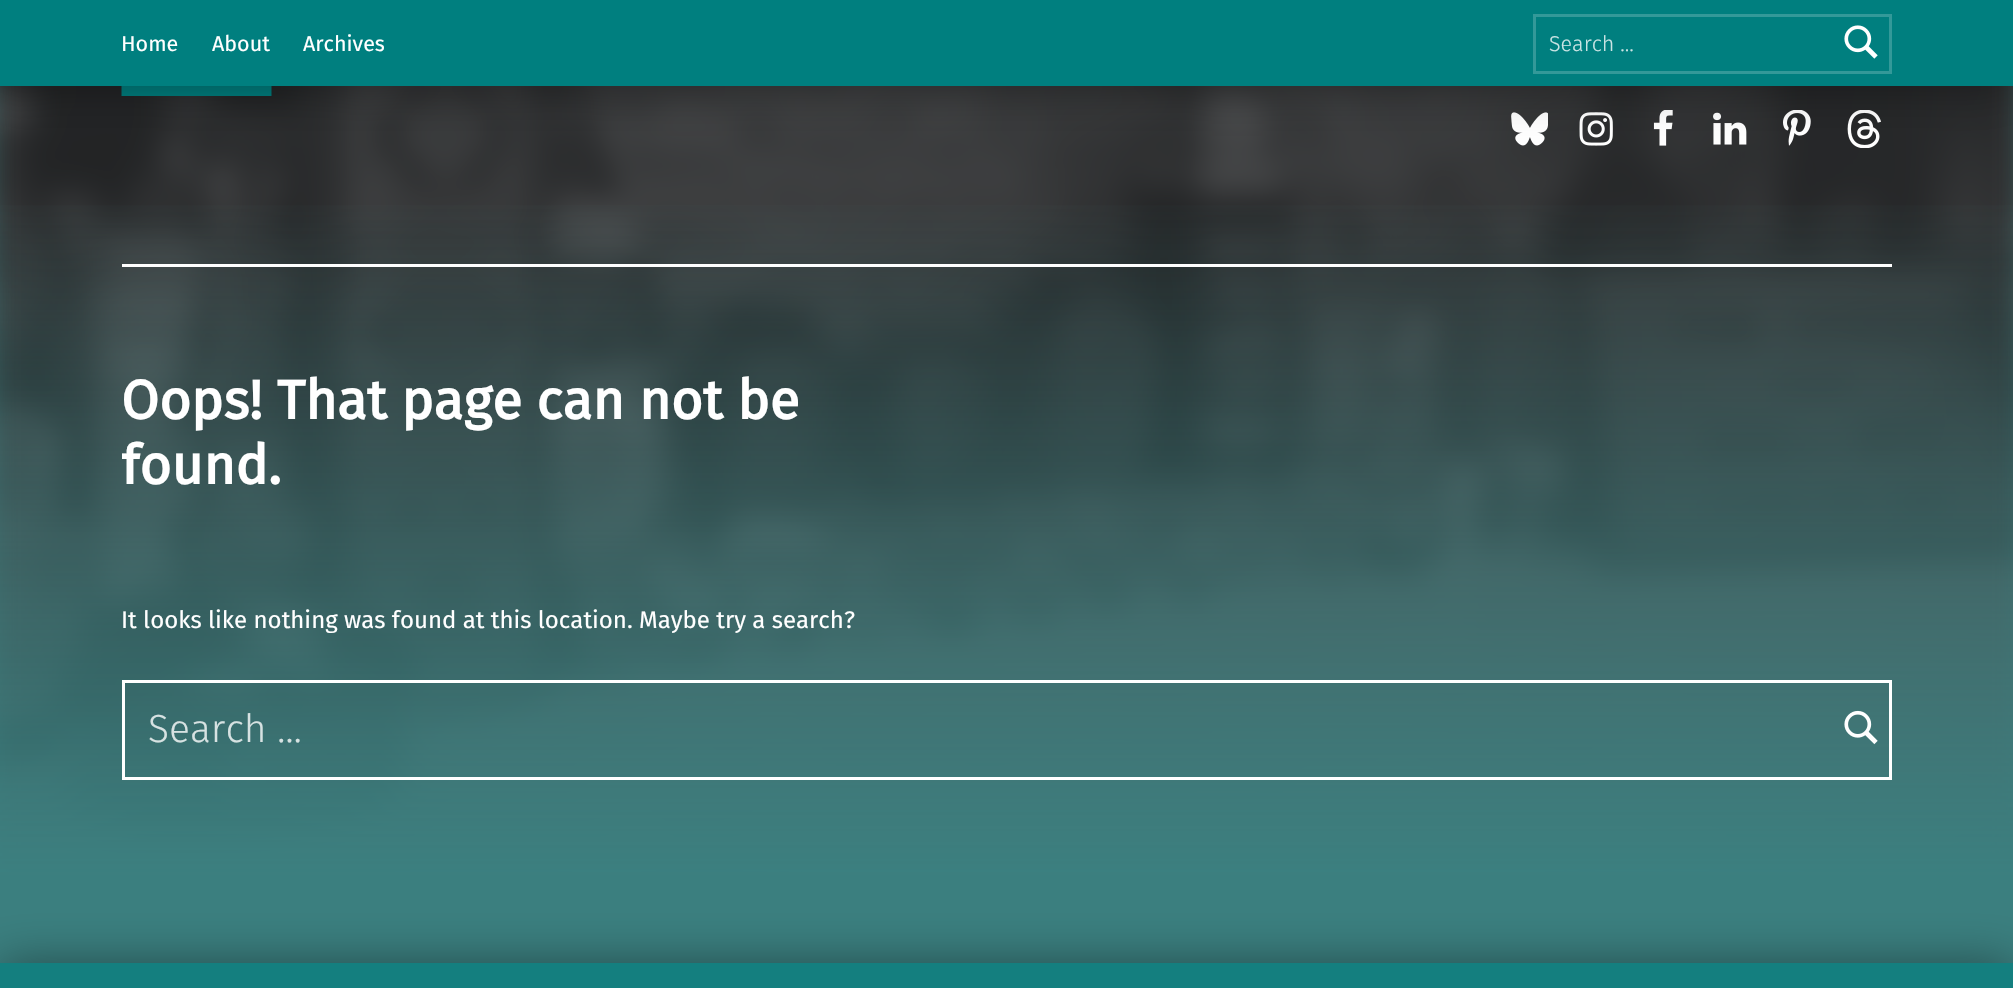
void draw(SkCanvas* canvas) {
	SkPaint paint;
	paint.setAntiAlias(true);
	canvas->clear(0xff3b7f7f);
	canvas->drawImageRect(SkImages::DeferredFromEncodedData(SkData::MakeFromFileName("img9.png")), SkRect::MakeXYWH(0, 86, 2013, 789), SkSamplingOptions());
	canvas->drawImageRect(SkImages::DeferredFromEncodedData(SkData::MakeFromFileName("img2.png")), SkRect::MakeXYWH(121, 86, 151, 10), SkSamplingOptions());
	canvas->drawImageRect(SkImages::DeferredFromEncodedData(SkData::MakeFromFileName("img3.png")), SkRect::MakeXYWH(1511, 112, 37, 34), SkSamplingOptions());
	canvas->drawImageRect(SkImages::DeferredFromEncodedData(SkData::MakeFromFileName("img4.png")), SkRect::MakeXYWH(1579, 112, 34, 34), SkSamplingOptions());
	canvas->drawImageRect(SkImages::DeferredFromEncodedData(SkData::MakeFromFileName("img5.png")), SkRect::MakeXYWH(1653, 110, 20, 36), SkSamplingOptions());
	canvas->drawImageRect(SkImages::DeferredFromEncodedData(SkData::MakeFromFileName("img6.png")), SkRect::MakeXYWH(1713, 112, 34, 33), SkSamplingOptions());
	canvas->drawImageRect(SkImages::DeferredFromEncodedData(SkData::MakeFromFileName("img7.png")), SkRect::MakeXYWH(1783, 110, 28, 36), SkSamplingOptions());
	canvas->drawImageRect(SkImages::DeferredFromEncodedData(SkData::MakeFromFileName("img8.png")), SkRect::MakeXYWH(1847, 110, 34, 38), SkSamplingOptions());
	paint.setColor(0x66000000);
	paint.setMaskFilter(SkMaskFilter::MakeBlur(kNormal_SkBlurStyle, 24));
	canvas->drawRect(SkRect::MakeXYWH(0, 0, 2013, 86), paint);
	paint.setMaskFilter(nullptr);
	paint.setColor(0xff007f7f);
	canvas->drawRect(SkRect::MakeXYWH(0, 0, 2013, 86), paint);
	SkFont f1(fontMgr->matchFamilyStyle("Fira Sans", SkFontStyle::Normal()), 21.5);
	f1.setSubpixel(true);
	paint.setColor(0xffffffff);
	canvas->drawString("Home", 121, 51, f1, paint);
	canvas->drawString("About", 212, 51, f1, paint);
	canvas->drawString("Archives", 303, 51, f1, paint);
	paint.setStroke(true);
	paint.setStrokeWidth(3);
	paint.setColor(0xff339999);
	canvas->drawRect(SkRect::MakeXYWH(1534.5, 15.5, 356, 57), paint);
	SkFont f2(fontMgr->matchFamilyStyle("Fira Sans", SkFontStyle(300, SkFontStyle::kNormal_Width, SkFontStyle::kUpright_Slant)), 21.5);
	f2.setSubpixel(true);
	paint.setStroke(false);
	paint.setColor(0xffcce5e5);
	canvas->drawString("Search …", 1549, 51, f2, paint);
	canvas->drawImageRect(SkImages::DeferredFromEncodedData(SkData::MakeFromFileName("img1.png")), SkRect::MakeXYWH(1844, 25, 34, 34), SkSamplingOptions());
	{
		const SkColor colors[] = {0x003b7f7f, 0xff3b7f7f};
		const float stops[] = {0, 1};
		const SkPoint ends[] = {{1007, 186}, {1007, 879}};
		paint.setShader(SkGradientShader::MakeLinear(ends, colors, stops, 2, SkTileMode::kClamp));
		paint.setAlpha(255);
	}
	canvas->drawRect(SkRect::MakeXYWH(0, 205, 2013, 670), paint);
	paint.setShader(nullptr);
	paint.setColor(0xffffffff);
	canvas->drawRect(SkRect::MakeXYWH(122, 264, 1770, 3), paint);
	SkFont f3(fontMgr->matchFamilyStyle("Fira Sans", SkFontStyle::Bold()), 54.75);
	f3.setSubpixel(true);
	canvas->drawString("Oops! That page can not be", 121, 419, f3, paint);
	canvas->save();
	canvas->clipRect(SkRect::MakeXYWH(122, 267, 1770, 335));
	canvas->drawString("found.", 121, 484, f3, paint);
	canvas->restore();
	SkFont f4(fontMgr->matchFamilyStyle("Fira Sans", SkFontStyle::Normal()), 24);
	f4.setSubpixel(true);
	canvas->drawString("It looks like nothing was found at this location. Maybe try a search?", 121, 628, f4, paint);
	paint.setStroke(true);
	canvas->drawRect(SkRect::MakeXYWH(123.5, 681.5, 1767, 97), paint);
	SkFont f5(fontMgr->matchFamilyStyle("Fira Sans", SkFontStyle(300, SkFontStyle::kNormal_Width, SkFontStyle::kUpright_Slant)), 39);
	f5.setSubpixel(true);
	paint.setStroke(false);
	paint.setColor(0xffd7e2e2);
	canvas->drawString("Search …", 148, 742, f5, paint);
	canvas->drawImageRect(SkImages::DeferredFromEncodedData(SkData::MakeFromFileName("img10.png")), SkRect::MakeXYWH(1844, 710, 34, 35), SkSamplingOptions());
	paint.setColor(0x66000000);
	paint.setMaskFilter(SkMaskFilter::MakeBlur(kNormal_SkBlurStyle, 24));
	canvas->drawRect(SkRect::MakeXYWH(0, 963, 2013, 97), paint);
	paint.setMaskFilter(nullptr);
	paint.setColor(0xff147f7f);
	canvas->drawRect(SkRect::MakeXYWH(0, 963, 2013, 25), paint);
}
